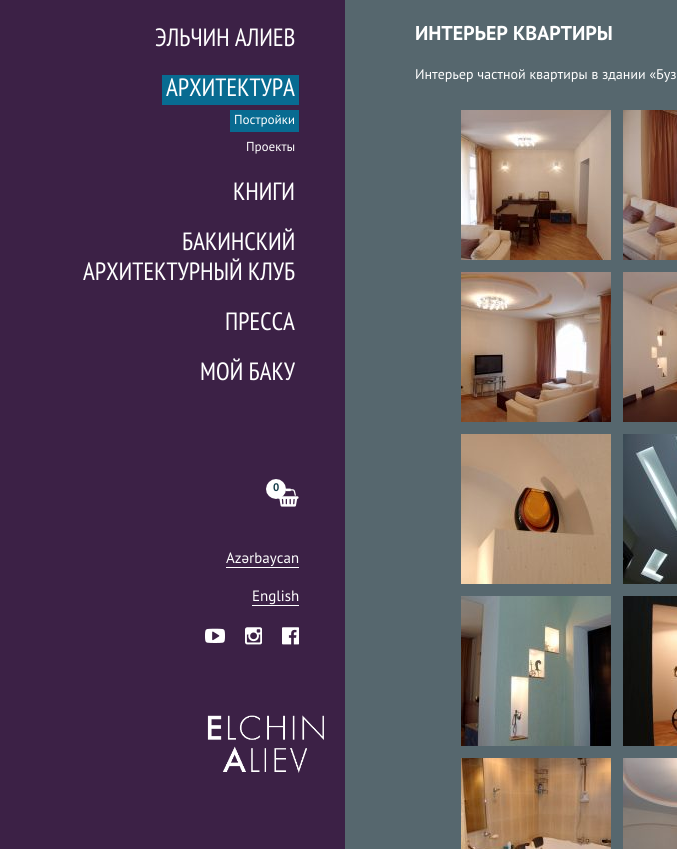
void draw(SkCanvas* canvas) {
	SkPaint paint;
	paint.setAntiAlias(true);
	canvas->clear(0xff3c2146);
	canvas->drawImageRect(SkImages::DeferredFromEncodedData(SkData::MakeFromFileName("img1.png")), SkRect::MakeXYWH(155, 28, 140, 19), SkSamplingOptions());
	paint.setColor(0xff086b91);
	canvas->drawRect(SkRect::MakeXYWH(162, 75, 137, 30), paint);
	canvas->drawImageRect(SkImages::DeferredFromEncodedData(SkData::MakeFromFileName("img2.png")), SkRect::MakeXYWH(166, 78, 129, 19), SkSamplingOptions());
	canvas->drawRect(SkRect::MakeXYWH(230, 110, 69, 22), paint);
	canvas->drawImageRect(SkImages::DeferredFromEncodedData(SkData::MakeFromFileName("img3.png")), SkRect::MakeXYWH(235, 114, 59, 13), SkSamplingOptions());
	canvas->drawImageRect(SkImages::DeferredFromEncodedData(SkData::MakeFromFileName("img4.png")), SkRect::MakeXYWH(247, 141, 48, 13), SkSamplingOptions());
	canvas->drawImageRect(SkImages::DeferredFromEncodedData(SkData::MakeFromFileName("img5.png")), SkRect::MakeXYWH(234, 182, 60, 18), SkSamplingOptions());
	canvas->drawImageRect(SkImages::DeferredFromEncodedData(SkData::MakeFromFileName("img6.png")), SkRect::MakeXYWH(183, 228, 111, 23), SkSamplingOptions());
	canvas->drawImageRect(SkImages::DeferredFromEncodedData(SkData::MakeFromFileName("img7.png")), SkRect::MakeXYWH(83, 258, 212, 23), SkSamplingOptions());
	canvas->drawImageRect(SkImages::DeferredFromEncodedData(SkData::MakeFromFileName("img8.png")), SkRect::MakeXYWH(226, 312, 69, 19), SkSamplingOptions());
	canvas->drawImageRect(SkImages::DeferredFromEncodedData(SkData::MakeFromFileName("img9.png")), SkRect::MakeXYWH(201, 358, 94, 23), SkSamplingOptions());
	canvas->drawImageRect(SkImages::DeferredFromEncodedData(SkData::MakeFromFileName("img11.png")), SkRect::MakeXYWH(278, 488, 21, 19), SkSamplingOptions());
	paint.setColor(0xffffffff);
	canvas->drawCircle(276, 489, 10, paint);
	canvas->drawImageRect(SkImages::DeferredFromEncodedData(SkData::MakeFromFileName("img10.png")), SkRect::MakeXYWH(273, 483, 6, 9), SkSamplingOptions());
	canvas->drawImageRect(SkImages::DeferredFromEncodedData(SkData::MakeFromFileName("img12.png")), SkRect::MakeXYWH(226, 552, 73, 15), SkSamplingOptions());
	canvas->drawRect(SkRect::MakeXYWH(226, 567, 73, 1), paint);
	canvas->drawImageRect(SkImages::DeferredFromEncodedData(SkData::MakeFromFileName("img13.png")), SkRect::MakeXYWH(253, 590, 46, 15), SkSamplingOptions());
	canvas->drawRect(SkRect::MakeXYWH(252, 605, 47, 1), paint);
	canvas->drawImageRect(SkImages::DeferredFromEncodedData(SkData::MakeFromFileName("img14.png")), SkRect::MakeXYWH(205, 628, 20, 15), SkSamplingOptions());
	canvas->drawImageRect(SkImages::DeferredFromEncodedData(SkData::MakeFromFileName("img15.png")), SkRect::MakeXYWH(245, 627, 17, 18), SkSamplingOptions());
	canvas->drawImageRect(SkImages::DeferredFromEncodedData(SkData::MakeFromFileName("img16.png")), SkRect::MakeXYWH(282, 627, 17, 18), SkSamplingOptions());
	canvas->drawImageRect(SkImages::DeferredFromEncodedData(SkData::MakeFromFileName("img17.png")), SkRect::MakeXYWH(207, 715, 117, 58), SkSamplingOptions());
	paint.setColor(0xff56676e);
	canvas->drawRect(SkRect::MakeXYWH(345, 0, 332, 849), paint);
	canvas->drawImageRect(SkImages::DeferredFromEncodedData(SkData::MakeFromFileName("img18.png")), SkRect::MakeXYWH(416, 25, 196, 16), SkSamplingOptions());
	canvas->drawImageRect(SkImages::DeferredFromEncodedData(SkData::MakeFromFileName("img19.png")), SkRect::MakeXYWH(416, 69, 260, 13), SkSamplingOptions());
	canvas->drawImageRect(SkImages::DeferredFromEncodedData(SkData::MakeFromFileName("img20.png")), SkRect::MakeXYWH(461, 110, 150, 150), SkSamplingOptions());
	canvas->drawImageRect(SkImages::DeferredFromEncodedData(SkData::MakeFromFileName("img21.png")), SkRect::MakeXYWH(623, 110, 54, 150), SkSamplingOptions());
	canvas->drawImageRect(SkImages::DeferredFromEncodedData(SkData::MakeFromFileName("img22.png")), SkRect::MakeXYWH(461, 272, 150, 150), SkSamplingOptions());
	canvas->drawImageRect(SkImages::DeferredFromEncodedData(SkData::MakeFromFileName("img23.png")), SkRect::MakeXYWH(623, 272, 54, 150), SkSamplingOptions());
	canvas->drawImageRect(SkImages::DeferredFromEncodedData(SkData::MakeFromFileName("img24.png")), SkRect::MakeXYWH(461, 434, 150, 150), SkSamplingOptions());
	canvas->drawImageRect(SkImages::DeferredFromEncodedData(SkData::MakeFromFileName("img25.png")), SkRect::MakeXYWH(623, 434, 54, 150), SkSamplingOptions());
	canvas->drawImageRect(SkImages::DeferredFromEncodedData(SkData::MakeFromFileName("img26.png")), SkRect::MakeXYWH(461, 596, 150, 150), SkSamplingOptions());
	canvas->drawImageRect(SkImages::DeferredFromEncodedData(SkData::MakeFromFileName("img27.png")), SkRect::MakeXYWH(623, 596, 54, 150), SkSamplingOptions());
	canvas->drawImageRect(SkImages::DeferredFromEncodedData(SkData::MakeFromFileName("img28.png")), SkRect::MakeXYWH(461, 758, 150, 91), SkSamplingOptions());
	canvas->drawImageRect(SkImages::DeferredFromEncodedData(SkData::MakeFromFileName("img29.png")), SkRect::MakeXYWH(623, 758, 54, 91), SkSamplingOptions());
}
